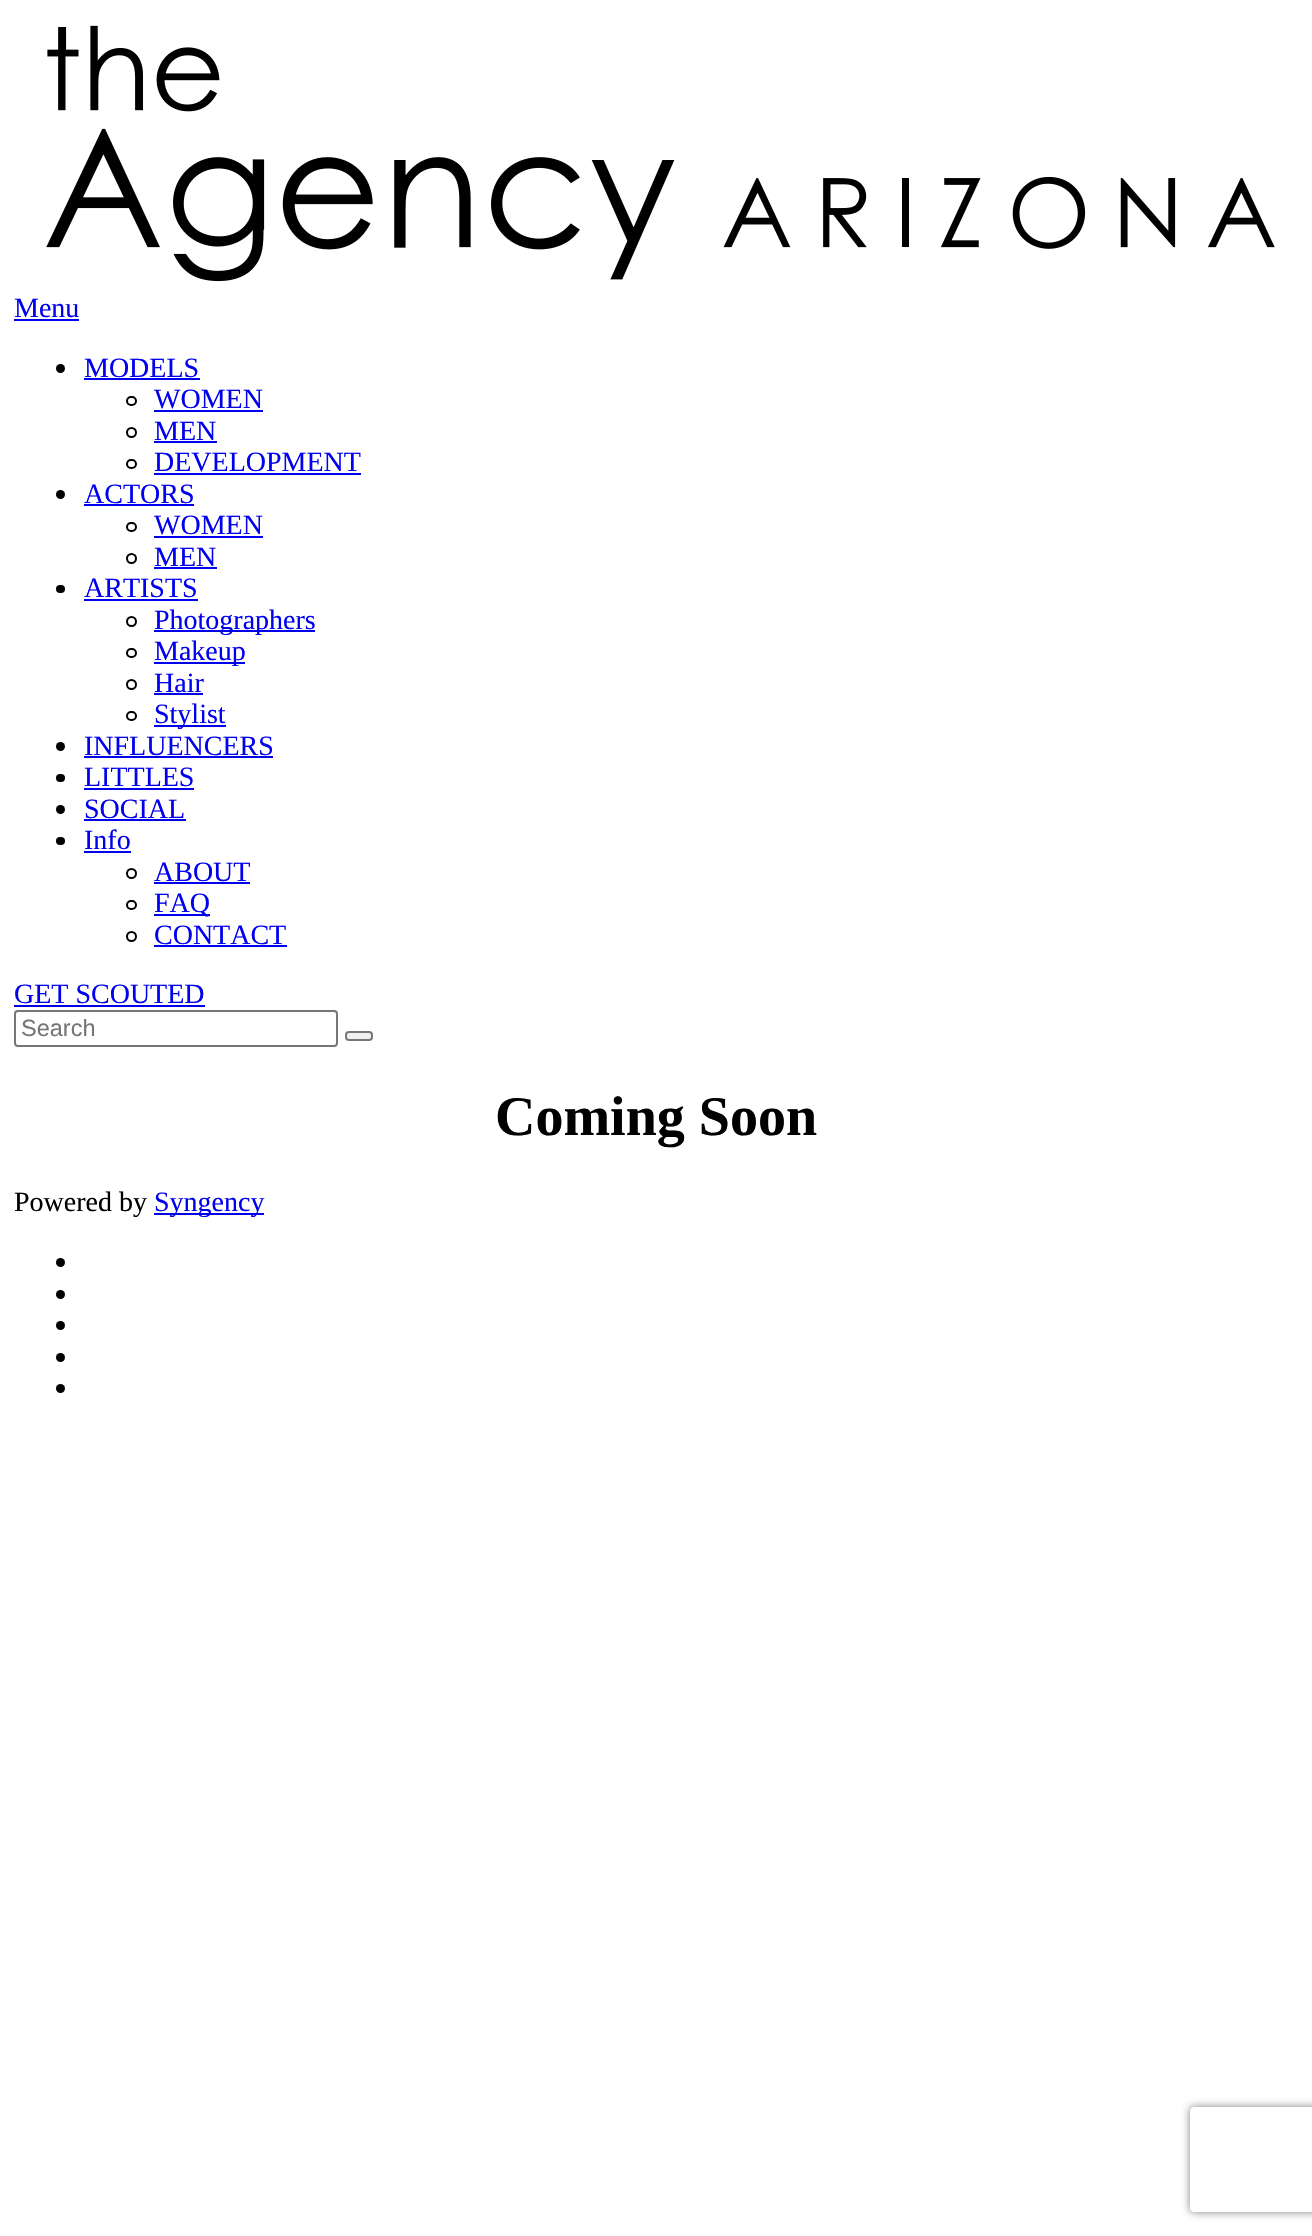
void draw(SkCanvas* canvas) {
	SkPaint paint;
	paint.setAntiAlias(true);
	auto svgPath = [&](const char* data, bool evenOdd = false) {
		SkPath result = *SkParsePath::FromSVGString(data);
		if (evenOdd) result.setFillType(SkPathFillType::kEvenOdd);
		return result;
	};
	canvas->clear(0xffffffff);
	canvas->drawImageRect(SkImages::DeferredFromEncodedData(SkData::MakeFromFileName("img1.png")), SkRect::MakeXYWH(46, 25, 1229, 257), SkSamplingOptions());
	SkFont f1(fontMgr->matchFamilyStyle("Liberation Serif", SkFontStyle::Normal()), 28);
	f1.setSubpixel(true);
	paint.setColor(0xff0000ee);
	canvas->drawString("Menu", 14, 317, f1, paint);
	canvas->drawRect(SkRect::MakeXYWH(14, 319, 65, 2), paint);
	paint.setColor(0xff000000);
	canvas->drawCircle(60.5, 368.5, 4.5, paint);
	paint.setColor(0xff0000ee);
	canvas->drawString("MODELS", 84, 377, f1, paint);
	canvas->drawRect(SkRect::MakeXYWH(84, 378, 116, 2), paint);
	paint.setStroke(true);
	paint.setStrokeWidth(2);
	paint.setColor(0xff000000);
	canvas->drawRoundRect(SkRect::MakeXYWH(127, 397, 9, 8), 4, 4, paint);
	paint.setStroke(false);
	paint.setColor(0xff0000ee);
	canvas->drawString("WOMEN", 154, 408, f1, paint);
	canvas->drawRect(SkRect::MakeXYWH(154, 410, 109, 2), paint);
	paint.setStroke(true);
	paint.setColor(0xff000000);
	canvas->drawCircle(131.5, 432.5, 4.5, paint);
	paint.setStroke(false);
	paint.setColor(0xff0000ee);
	canvas->drawString("MEN", 154, 440, f1, paint);
	canvas->drawRect(SkRect::MakeXYWH(154, 441, 63, 2), paint);
	paint.setStroke(true);
	paint.setColor(0xff000000);
	canvas->drawRoundRect(SkRect::MakeXYWH(127, 460, 9, 8), 4, 4, paint);
	paint.setStroke(false);
	paint.setColor(0xff0000ee);
	canvas->drawString("DEVELOPMENT", 154, 471, f1, paint);
	canvas->drawRect(SkRect::MakeXYWH(154, 473, 207, 2), paint);
	paint.setColor(0xff000000);
	canvas->drawCircle(60.5, 494.5, 4.5, paint);
	paint.setColor(0xff0000ee);
	canvas->drawString("ACTORS", 84, 503, f1, paint);
	canvas->drawRect(SkRect::MakeXYWH(84, 504, 110, 2), paint);
	paint.setStroke(true);
	paint.setColor(0xff000000);
	canvas->drawRoundRect(SkRect::MakeXYWH(127, 523, 9, 8), 4, 4, paint);
	paint.setStroke(false);
	paint.setColor(0xff0000ee);
	canvas->drawString("WOMEN", 154, 534, f1, paint);
	canvas->drawRect(SkRect::MakeXYWH(154, 536, 109, 2), paint);
	paint.setStroke(true);
	paint.setColor(0xff000000);
	canvas->drawCircle(131.5, 558.5, 4.5, paint);
	paint.setStroke(false);
	paint.setColor(0xff0000ee);
	canvas->drawString("MEN", 154, 566, f1, paint);
	canvas->drawRect(SkRect::MakeXYWH(154, 567, 63, 2), paint);
	paint.setColor(0xff000000);
	canvas->drawRoundRect(SkRect::MakeXYWH(56, 585, 9, 8), 4, 4, paint);
	paint.setColor(0xff0000ee);
	canvas->drawString("ARTISTS", 84, 597, f1, paint);
	canvas->drawRect(SkRect::MakeXYWH(84, 599, 114, 2), paint);
	paint.setStroke(true);
	paint.setColor(0xff000000);
	canvas->drawCircle(131.5, 621.5, 4.5, paint);
	paint.setStroke(false);
	paint.setColor(0xff0000ee);
	canvas->drawRect(SkRect::MakeXYWH(154, 630, 161, 2), paint);
	canvas->drawString("Photographers", 154, 629, f1, paint);
	paint.setStroke(true);
	paint.setColor(0xff000000);
	canvas->drawRoundRect(SkRect::MakeXYWH(127, 649, 9, 8), 4, 4, paint);
	paint.setStroke(false);
	paint.setColor(0xff0000ee);
	canvas->drawRect(SkRect::MakeXYWH(154, 662, 91, 2), paint);
	canvas->drawString("Makeup", 154, 660, f1, paint);
	paint.setStroke(true);
	paint.setColor(0xff000000);
	canvas->drawCircle(131.5, 684.5, 4.5, paint);
	paint.setStroke(false);
	paint.setColor(0xff0000ee);
	canvas->drawString("Hair", 154, 692, f1, paint);
	canvas->drawRect(SkRect::MakeXYWH(154, 693, 49, 2), paint);
	paint.setStroke(true);
	paint.setColor(0xff000000);
	canvas->drawRoundRect(SkRect::MakeXYWH(127, 712, 9, 8), 4, 4, paint);
	paint.setStroke(false);
	paint.setColor(0xff0000ee);
	canvas->drawRect(SkRect::MakeXYWH(154, 725, 72, 2), paint);
	canvas->drawString("Stylist", 154, 723, f1, paint);
	paint.setColor(0xff000000);
	canvas->drawCircle(60.5, 746.5, 4.5, paint);
	paint.setColor(0xff0000ee);
	canvas->drawString("INFLUENCERS", 84, 755, f1, paint);
	canvas->drawRect(SkRect::MakeXYWH(84, 756, 189, 2), paint);
	paint.setColor(0xff000000);
	canvas->drawRoundRect(SkRect::MakeXYWH(56, 774, 9, 8), 4, 4, paint);
	paint.setColor(0xff0000ee);
	canvas->drawString("LITTLES", 84, 786, f1, paint);
	canvas->drawRect(SkRect::MakeXYWH(84, 788, 110, 2), paint);
	paint.setColor(0xff000000);
	canvas->drawCircle(60.5, 809.5, 4.5, paint);
	paint.setColor(0xff0000ee);
	canvas->drawString("SOCIAL", 84, 818, f1, paint);
	canvas->drawRect(SkRect::MakeXYWH(84, 819, 102, 2), paint);
	paint.setColor(0xff000000);
	canvas->drawRoundRect(SkRect::MakeXYWH(56, 837, 9, 8), 4, 4, paint);
	paint.setColor(0xff0000ee);
	canvas->drawString("Info", 84, 849, f1, paint);
	canvas->drawRect(SkRect::MakeXYWH(84, 851, 47, 2), paint);
	paint.setStroke(true);
	paint.setColor(0xff000000);
	canvas->drawCircle(131.5, 873.5, 4.5, paint);
	paint.setStroke(false);
	paint.setColor(0xff0000ee);
	canvas->drawString("ABOUT", 154, 881, f1, paint);
	canvas->drawRect(SkRect::MakeXYWH(154, 882, 96, 2), paint);
	paint.setStroke(true);
	paint.setColor(0xff000000);
	canvas->drawRoundRect(SkRect::MakeXYWH(127, 901, 9, 8), 4, 4, paint);
	paint.setStroke(false);
	paint.setColor(0xff0000ee);
	canvas->drawRect(SkRect::MakeXYWH(154, 914, 56, 2), paint);
	canvas->drawString("FAQ", 154, 912, f1, paint);
	paint.setStroke(true);
	paint.setColor(0xff000000);
	canvas->drawCircle(131.5, 936.5, 4.5, paint);
	paint.setStroke(false);
	paint.setColor(0xff0000ee);
	canvas->drawString("CONTACT", 154, 944, f1, paint);
	canvas->drawRect(SkRect::MakeXYWH(154, 945, 133, 2), paint);
	canvas->drawString("GET SCOUTED", 14, 1003, f1, paint);
	canvas->drawRect(SkRect::MakeXYWH(14, 1005, 191, 2), paint);
	paint.setStroke(true);
	paint.setColor(0xff767676);
	canvas->drawRoundRect(SkRect::MakeXYWH(15, 1011, 322, 35), 3, 3, paint);
	SkFont f2(fontMgr->matchFamilyStyle("Liberation Sans", SkFontStyle::Normal()), 23.5);
	f2.setSubpixel(true);
	paint.setStroke(false);
	paint.setColor(0xff757575);
	canvas->drawString("Search", 21, 1036, f2, paint);
	paint.setColor(0xffefefef);
	canvas->drawRoundRect(SkRect::MakeXYWH(346, 1032, 26, 8), 3, 3, paint);
	paint.setStroke(true);
	paint.setColor(0xff767676);
	canvas->drawRoundRect(SkRect::MakeXYWH(346, 1032, 26, 8), 3, 3, paint);
	SkFont f3(fontMgr->matchFamilyStyle("Liberation Serif", SkFontStyle::Bold()), 56);
	f3.setSubpixel(true);
	paint.setStroke(false);
	paint.setColor(0xff000000);
	canvas->drawString("Coming Soon", 495, 1135, f3, paint);
	canvas->drawString("Powered by", 14, 1211, f1, paint);
	paint.setColor(0xff0000ee);
	canvas->drawRect(SkRect::MakeXYWH(154, 1213, 110, 2), paint);
	canvas->drawString("Syngency", 154, 1211, f1, paint);
	paint.setColor(0xff000000);
	canvas->drawCircle(60.5, 1262.5, 4.5, paint);
	canvas->drawCircle(60.5, 1294.5, 4.5, paint);
	canvas->drawCircle(60.5, 1325.5, 4.5, paint);
	canvas->drawCircle(60.5, 1357.5, 4.5, paint);
	canvas->drawCircle(60.5, 1388.5, 4.5, paint);
	canvas->save();
	canvas->clipPath(svgPath("M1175 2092H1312V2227H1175ZM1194 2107H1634C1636 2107 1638 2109 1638 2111V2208C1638 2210 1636 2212 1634 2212H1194C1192 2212 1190 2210 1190 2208V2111C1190 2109 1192 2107 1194 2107Z", true), true);
	paint.setColor(0xff808080);
	paint.setMaskFilter(SkMaskFilter::MakeBlur(kNormal_SkBlurStyle, 4.5));
	canvas->drawRoundRect(SkRect::MakeXYWH(1190, 2107, 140, 105), 4, 4, paint);
	paint.setMaskFilter(nullptr);
	canvas->restore();
}
